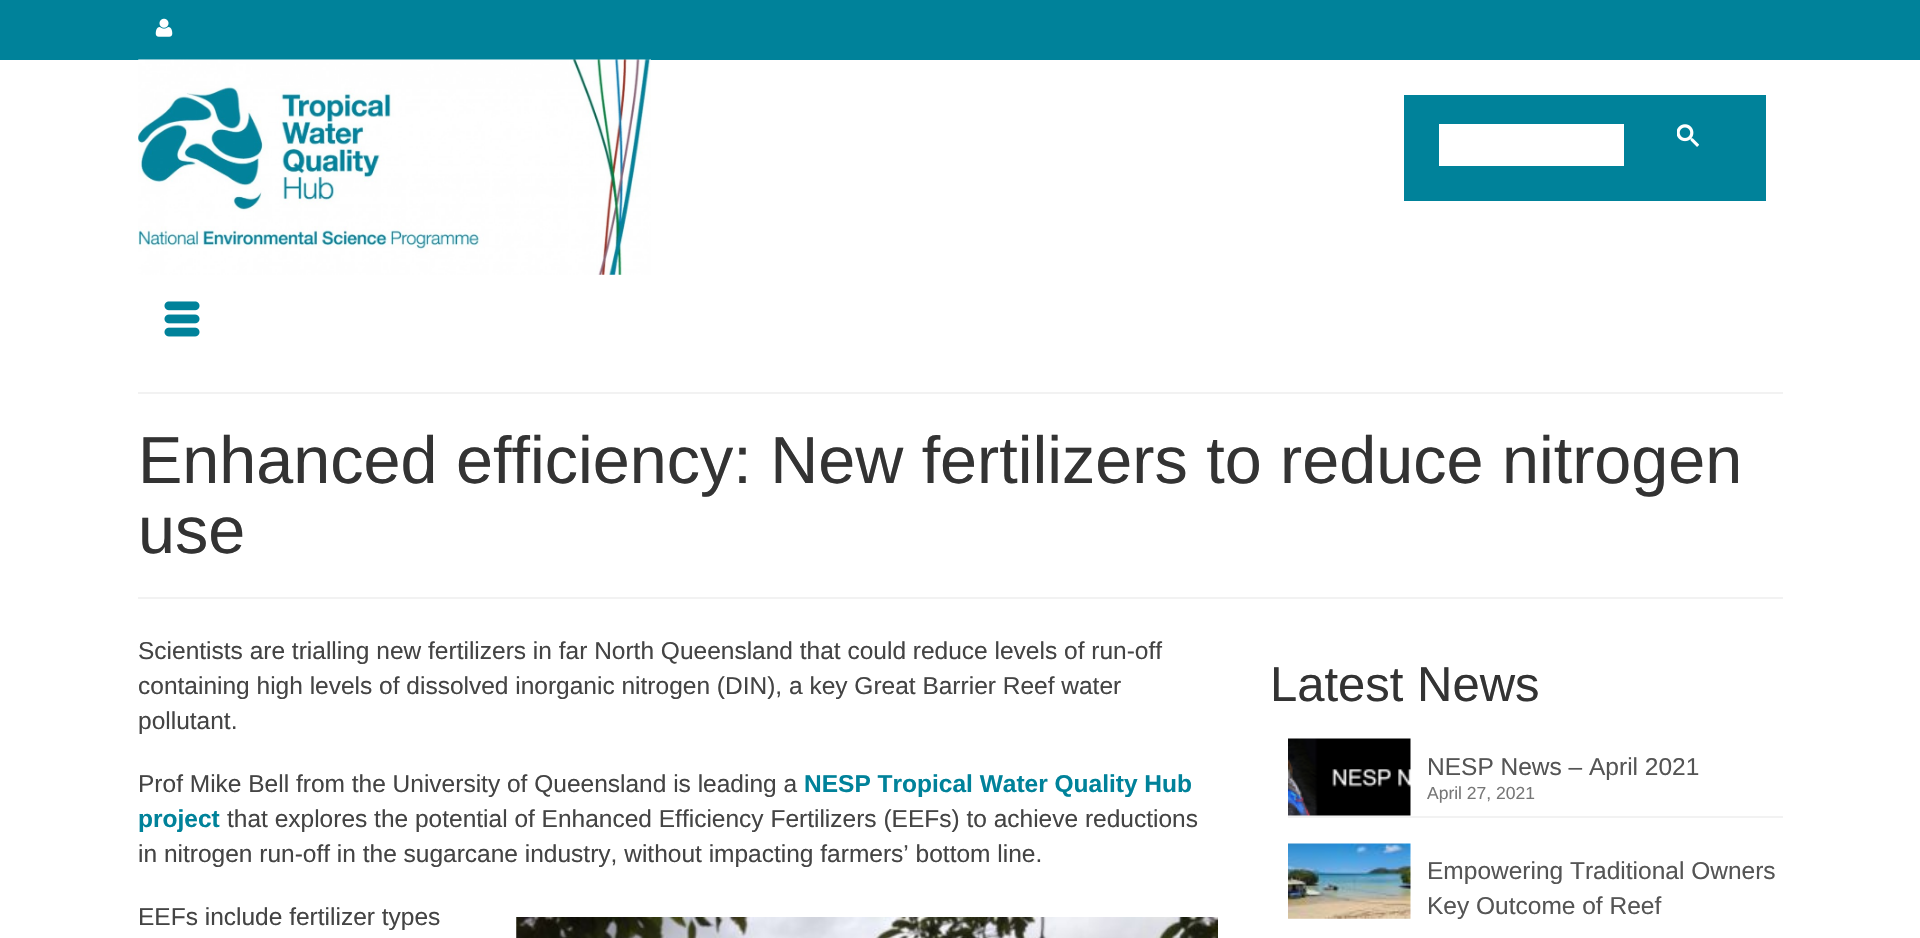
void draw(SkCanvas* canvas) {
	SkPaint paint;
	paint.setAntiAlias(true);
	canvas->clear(0xffffffff);
	paint.setColor(0xff00829a);
	canvas->drawRect(SkRect::MakeXYWH(0, 0, 1920, 60), paint);
	canvas->drawImageRect(SkImages::DeferredFromEncodedData(SkData::MakeFromFileName("img1.png")), SkRect::MakeXYWH(155, 18, 18, 19), SkSamplingOptions());
	canvas->drawImageRect(SkImages::DeferredFromEncodedData(SkData::MakeFromFileName("img2.png")), SkRect::MakeXYWH(138, 59, 513, 216), SkSamplingOptions());
	canvas->drawRect(SkRect::MakeXYWH(1404, 95, 362, 106), paint);
	paint.setColor(0xffffffff);
	canvas->drawRect(SkRect::MakeXYWH(1439, 124, 185, 42), paint);
	canvas->drawImageRect(SkImages::DeferredFromEncodedData(SkData::MakeFromFileName("img3.png")), SkRect::MakeXYWH(1677, 124, 22, 23), SkSamplingOptions());
	canvas->drawImageRect(SkImages::DeferredFromEncodedData(SkData::MakeFromFileName("img4.png")), SkRect::MakeXYWH(164, 301, 36, 36), SkSamplingOptions());
	paint.setColor(0xfff2f2f2);
	canvas->drawRect(SkRect::MakeXYWH(138, 392, 1645, 2), paint);
	canvas->drawRect(SkRect::MakeXYWH(138, 597, 1645, 2), paint);
	SkFont f1(fontMgr->matchFamilyStyle("Liberation Sans", SkFontStyle::Normal()), 66.5);
	f1.setSubpixel(true);
	paint.setColor(0xff333333);
	canvas->drawString("Enhanced efficiency: New fertilizers to reduce nitrogen", 138, 483, f1, paint);
	canvas->drawString("use", 138, 553, f1, paint);
	SkFont f2(fontMgr->matchFamilyStyle("Liberation Sans", SkFontStyle::Normal()), 24.5);
	f2.setSubpixel(true);
	paint.setColor(0xff444444);
	canvas->drawString("Scientists are trialling new fertilizers in far North Queensland that could reduce levels of run-off", 138, 659, f2, paint);
	canvas->drawString("containing high levels of dissolved inorganic nitrogen (DIN), a key Great Barrier Reef water", 138, 694, f2, paint);
	canvas->drawString("pollutant.", 138, 729, f2, paint);
	canvas->drawString("Prof Mike Bell from the University of Queensland is leading a", 138, 792, f2, paint);
	SkFont f3(fontMgr->matchFamilyStyle("Liberation Sans", SkFontStyle::Bold()), 24.5);
	f3.setSubpixel(true);
	paint.setColor(0xff00829a);
	canvas->drawString("NESP Tropical Water Quality Hub", 804, 792, f3, paint);
	canvas->drawString("project", 138, 827, f3, paint);
	paint.setColor(0xff444444);
	canvas->drawString("that explores the potential of Enhanced Efficiency Fertilizers (EEFs) to achieve reductions", 227, 827, f2, paint);
	canvas->drawString("in nitrogen run-off in the sugarcane industry, without impacting farmers’ bottom line.", 138, 862, f2, paint);
	canvas->drawString("EEFs include fertilizer types", 138, 925, f2, paint);
	canvas->drawImageRect(SkImages::DeferredFromEncodedData(SkData::MakeFromFileName("img5.png")), SkRect::MakeXYWH(516, 917, 702, 21), SkSamplingOptions());
	SkFont f4(fontMgr->matchFamilyStyle("Liberation Sans", SkFontStyle::Normal()), 49);
	f4.setSubpixel(true);
	paint.setColor(0xff333333);
	canvas->drawString("Latest News", 1270, 701, f4, paint);
	paint.setColor(0xfff2f2f2);
	canvas->drawRect(SkRect::MakeXYWH(1288, 816, 495, 2), paint);
	canvas->drawImageRect(SkImages::DeferredFromEncodedData(SkData::MakeFromFileName("img6.png")), SkRect::MakeXYWH(1288, 738, 123, 78), SkSamplingOptions());
	paint.setColor(0xff555555);
	canvas->drawString("NESP News – April 2021", 1427, 775, f2, paint);
	SkFont f5(fontMgr->matchFamilyStyle("Liberation Sans", SkFontStyle::Normal()), 17.5);
	f5.setSubpixel(true);
	paint.setColor(0xff777777);
	canvas->drawString("April 27, 2021", 1427, 799, f5, paint);
	canvas->drawImageRect(SkImages::DeferredFromEncodedData(SkData::MakeFromFileName("img7.png")), SkRect::MakeXYWH(1288, 843, 123, 76), SkSamplingOptions());
	paint.setColor(0xff555555);
	canvas->drawString("Empowering Traditional Owners", 1427, 879, f2, paint);
	canvas->drawString("Key Outcome of Reef", 1427, 914, f2, paint);
}
